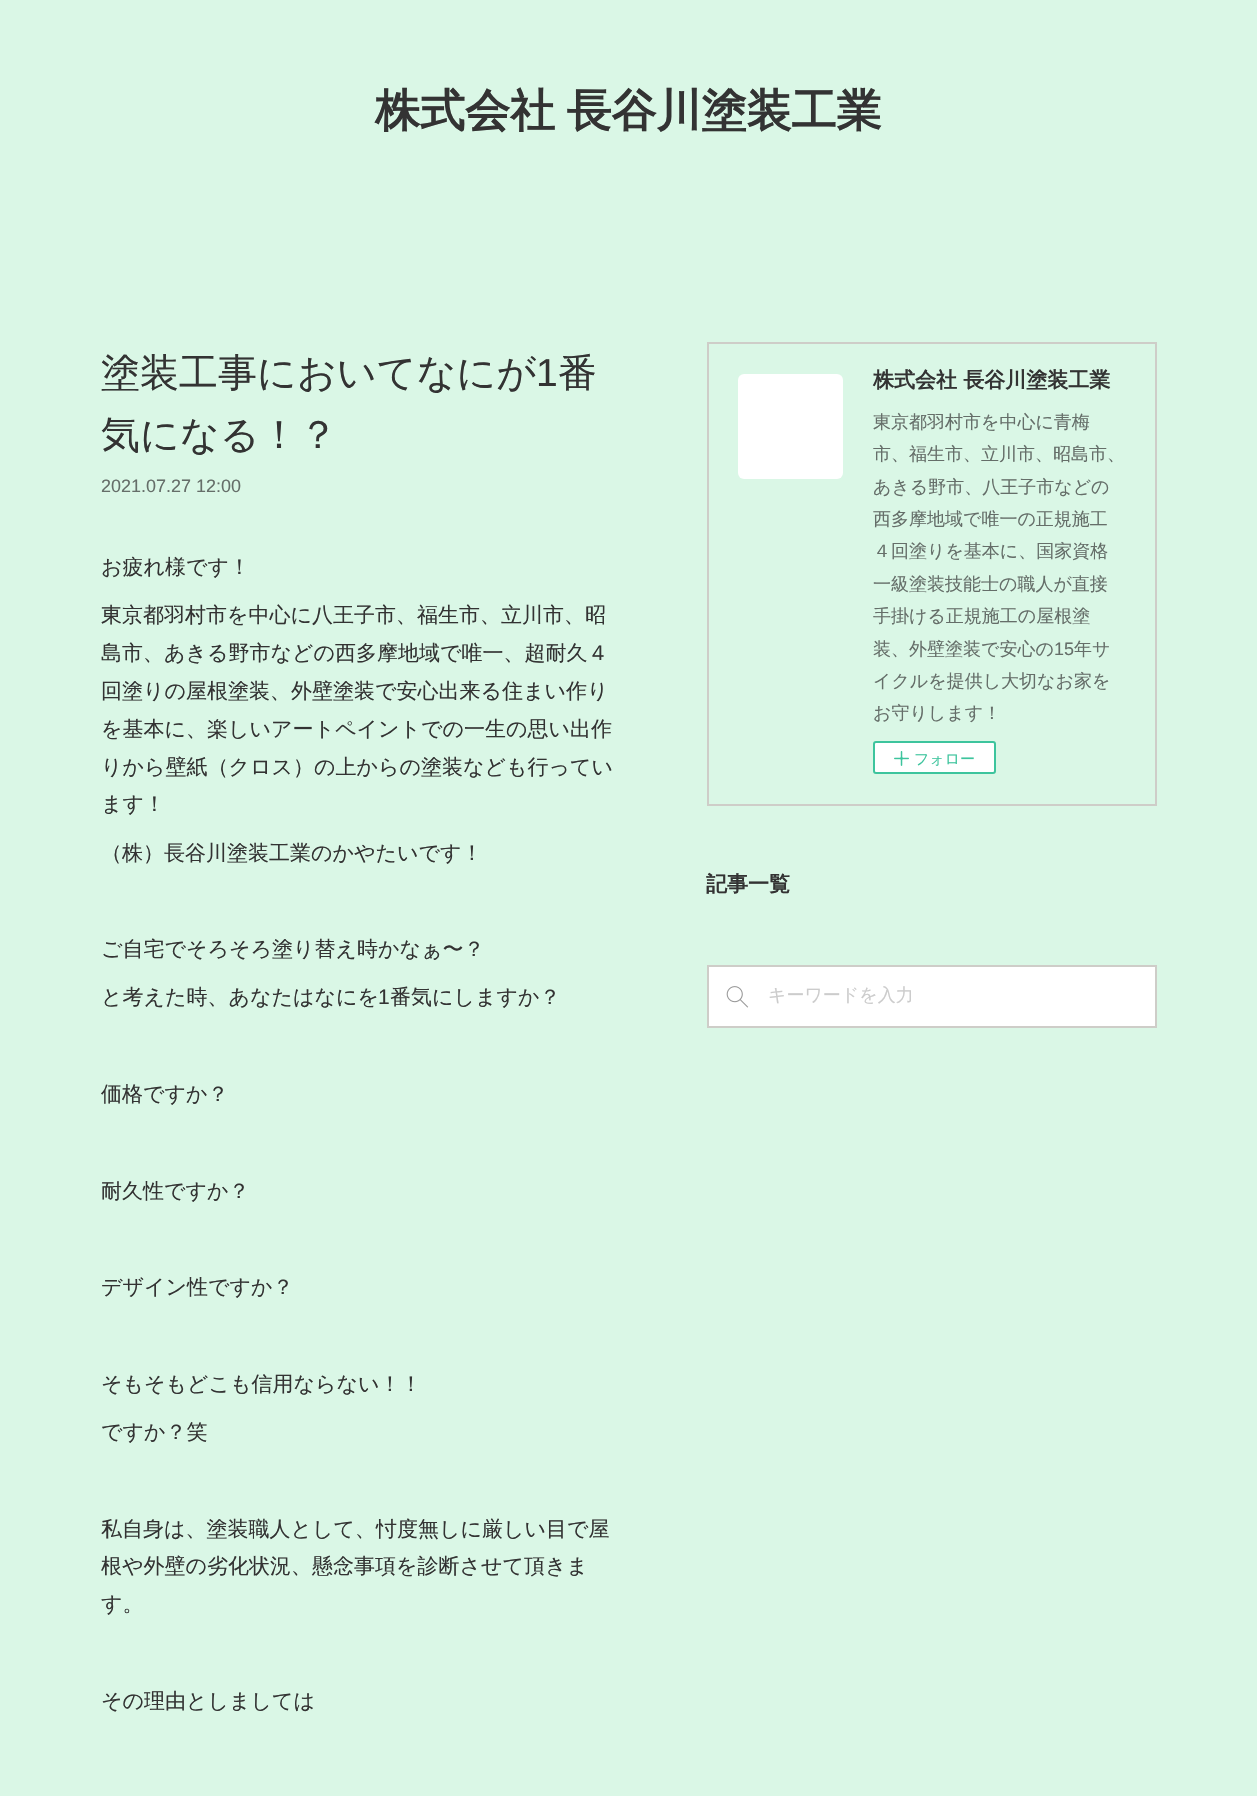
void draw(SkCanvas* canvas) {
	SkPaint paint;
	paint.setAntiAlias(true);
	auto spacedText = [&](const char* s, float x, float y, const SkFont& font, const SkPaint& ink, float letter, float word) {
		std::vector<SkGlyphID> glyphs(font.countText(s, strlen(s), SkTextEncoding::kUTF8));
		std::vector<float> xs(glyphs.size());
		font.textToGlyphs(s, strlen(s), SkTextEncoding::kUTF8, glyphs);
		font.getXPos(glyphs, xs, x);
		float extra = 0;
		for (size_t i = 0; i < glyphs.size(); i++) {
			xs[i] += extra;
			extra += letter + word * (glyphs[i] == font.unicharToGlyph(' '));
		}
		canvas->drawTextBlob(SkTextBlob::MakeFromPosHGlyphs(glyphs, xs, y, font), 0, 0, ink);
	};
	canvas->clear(0xffdaf7e6);
	SkFont f1(fontMgr->matchFamilyStyle("WenQuanYi Zen Hei", SkFontStyle::Bold()), 45);
	f1.setSubpixel(true);
	paint.setColor(0xff333333);
	spacedText("株式会社 長谷川塗装工業", 375, 126, f1, paint, 0, -2);
	SkFont f2(fontMgr->matchFamilyStyle("WenQuanYi Zen Hei", SkFontStyle(500, SkFontStyle::kNormal_Width, SkFontStyle::kUpright_Slant)), 39);
	f2.setSubpixel(true);
	canvas->drawString("塗装工事においてなにが", 101, 386, f2, paint);
	SkFont f3(fontMgr->matchFamilyStyle("Liberation Sans", SkFontStyle::Normal()), 39);
	f3.setSubpixel(true);
	canvas->drawString("1", 536, 386, f3, paint);
	canvas->drawString("番", 558, 386, f2, paint);
	canvas->drawString("気になる！？", 101, 448, f2, paint);
	SkFont f4(fontMgr->matchFamilyStyle("Liberation Sans", SkFontStyle::Normal()), 18);
	f4.setSubpixel(true);
	paint.setColor(0xff656e69);
	canvas->drawString("2021.07.27 12:00", 101, 492, f4, paint);
	SkFont f5(fontMgr->matchFamilyStyle("WenQuanYi Zen Hei", SkFontStyle(500, SkFontStyle::kNormal_Width, SkFontStyle::kUpright_Slant)), 21);
	f5.setSubpixel(true);
	paint.setColor(0xff333333);
	canvas->drawString("お疲れ様です！", 101, 574, f5, paint);
	canvas->drawString("東京都羽村市を中心に八王子市、福生市、立川市、昭", 101, 622, f5, paint);
	canvas->drawString("島市、あきる野市などの西多摩地域で唯一、超耐久４", 101, 660, f5, paint);
	canvas->drawString("回塗りの屋根塗装、外壁塗装で安心出来る住まい作り", 101, 698, f5, paint);
	canvas->drawString("を基本に、楽しいアートペイントでの一生の思い出作", 101, 736, f5, paint);
	canvas->drawString("りから壁紙（クロス）の上からの塗装なども行ってい", 101, 774, f5, paint);
	canvas->drawString("ます！", 101, 811, f5, paint);
	canvas->drawString("（株）長谷川塗装工業のかやたいです！", 101, 860, f5, paint);
	canvas->drawString("ご自宅でそろそろ塗り替え時かなぁ〜？", 101, 956, f5, paint);
	canvas->drawString("と考えた時、あなたはなにを", 101, 1004, f5, paint);
	SkFont f6(fontMgr->matchFamilyStyle("Liberation Sans", SkFontStyle::Normal()), 21);
	f6.setSubpixel(true);
	canvas->drawString("1", 378, 1004, f6, paint);
	canvas->drawString("番気にしますか？", 390, 1004, f5, paint);
	canvas->drawString("価格ですか？", 101, 1101, f5, paint);
	canvas->drawString("耐久性ですか？", 101, 1198, f5, paint);
	canvas->drawString("デザイン性ですか？", 101, 1294, f5, paint);
	canvas->drawString("そもそもどこも信用ならない！！", 101, 1391, f5, paint);
	canvas->drawString("ですか？笑", 101, 1439, f5, paint);
	canvas->drawString("私自身は、塗装職人として、忖度無しに厳しい目で屋", 101, 1536, f5, paint);
	canvas->drawString("根や外壁の劣化状況、懸念事項を診断させて頂きま", 101, 1573, f5, paint);
	canvas->drawString("す。", 101, 1611, f5, paint);
	canvas->drawString("その理由としましては", 101, 1708, f5, paint);
	paint.setStroke(true);
	paint.setStrokeWidth(2);
	paint.setColor(0xffcecdc8);
	canvas->drawRect(SkRect::MakeXYWH(708, 343, 448, 462), paint);
	paint.setStroke(false);
	paint.setColor(0xffffffff);
	canvas->drawRoundRect(SkRect::MakeXYWH(738, 374, 105, 105), 6, 6, paint);
	SkFont f7(fontMgr->matchFamilyStyle("WenQuanYi Zen Hei", SkFontStyle::Bold()), 21);
	f7.setSubpixel(true);
	paint.setColor(0xff333333);
	canvas->drawString("株式会社 長谷川塗装工業", 873, 387, f7, paint);
	SkFont f8(fontMgr->matchFamilyStyle("WenQuanYi Zen Hei", SkFontStyle(500, SkFontStyle::kNormal_Width, SkFontStyle::kUpright_Slant)), 18);
	f8.setSubpixel(true);
	paint.setColor(0xff656e69);
	canvas->drawString("東京都羽村市を中心に青梅", 873, 428, f8, paint);
	canvas->drawString("市、福生市、立川市、昭島市、", 873, 460, f8, paint);
	canvas->drawString("あきる野市、八王子市などの", 873, 493, f8, paint);
	canvas->drawString("西多摩地域で唯一の正規施工", 873, 525, f8, paint);
	canvas->drawString("４回塗りを基本に、国家資格", 873, 557, f8, paint);
	canvas->drawString("一級塗装技能士の職人が直接", 873, 590, f8, paint);
	canvas->drawString("手掛ける正規施工の屋根塗", 873, 622, f8, paint);
	canvas->drawString("装、外壁塗装で安心の", 873, 655, f8, paint);
	canvas->drawString("15", 1054, 655, f4, paint);
	canvas->drawString("年サ", 1074, 655, f8, paint);
	canvas->drawString("イクルを提供し大切なお家を", 873, 687, f8, paint);
	canvas->drawString("お守りします！", 873, 719, f8, paint);
	paint.setColor(0xffffffff);
	canvas->drawRoundRect(SkRect::MakeXYWH(874, 742, 121, 31), 2, 2, paint);
	paint.setStroke(true);
	paint.setColor(0xff3dc49d);
	canvas->drawRoundRect(SkRect::MakeXYWH(874, 742, 121, 31), 2, 2, paint);
	canvas->drawImageRect(SkImages::DeferredFromEncodedData(SkData::MakeFromFileName("img1.png")), SkRect::MakeXYWH(894, 751, 15, 15), SkSamplingOptions());
	SkFont f9(fontMgr->matchFamilyStyle("WenQuanYi Zen Hei", SkFontStyle(500, SkFontStyle::kNormal_Width, SkFontStyle::kUpright_Slant)), 15);
	f9.setSubpixel(true);
	paint.setStroke(false);
	canvas->drawString("フォロー", 914, 764, f9, paint);
	paint.setColor(0xff333333);
	canvas->drawString("記事一覧", 706, 891, f7, paint);
	paint.setColor(0xffffffff);
	canvas->drawRect(SkRect::MakeXYWH(708, 966, 448, 61), paint);
	paint.setStroke(true);
	paint.setColor(0xffcecdc8);
	canvas->drawRect(SkRect::MakeXYWH(708, 966, 448, 61), paint);
	canvas->drawImageRect(SkImages::DeferredFromEncodedData(SkData::MakeFromFileName("img2.png")), SkRect::MakeXYWH(726, 986, 23, 22), SkSamplingOptions());
	paint.setStroke(false);
	paint.setColor(0xffcccccc);
	canvas->drawString("キーワードを入力", 768, 1001, f8, paint);
}
